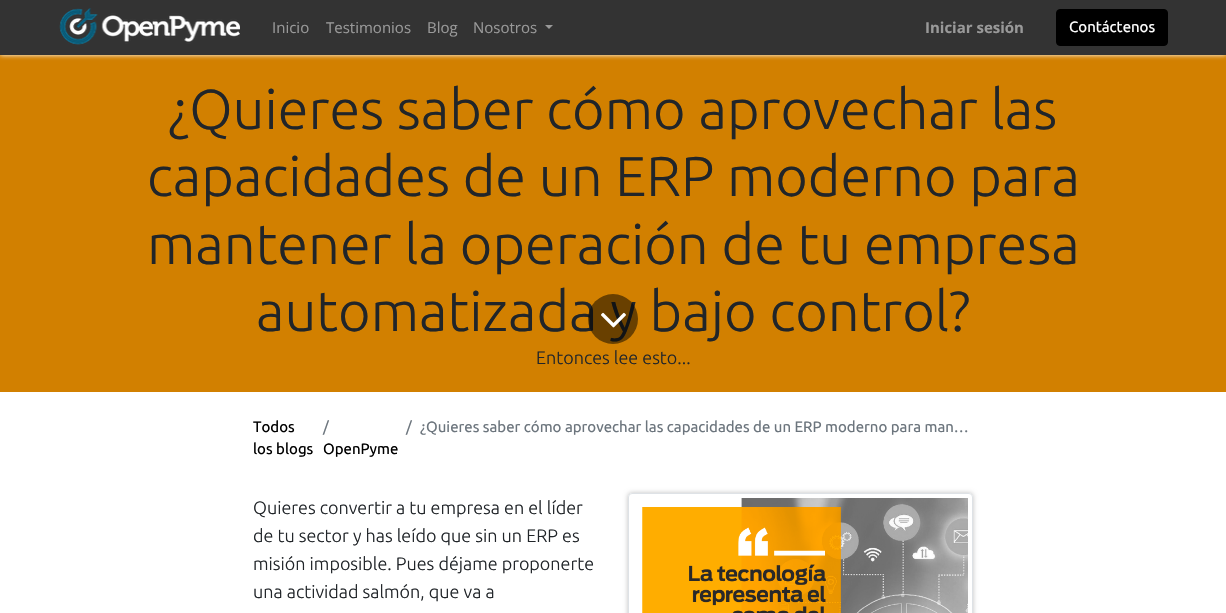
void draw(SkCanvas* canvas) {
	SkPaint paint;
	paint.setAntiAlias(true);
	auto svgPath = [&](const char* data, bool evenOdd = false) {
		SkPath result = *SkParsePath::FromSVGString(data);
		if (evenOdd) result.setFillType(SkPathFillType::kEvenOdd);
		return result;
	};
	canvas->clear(0xffffffff);
	paint.setColor(0xffd28000);
	canvas->drawRect(SkRect::MakeXYWH(0, 55, 1226, 337), paint);
	paint.setColor(0xffffffff);
	paint.setMaskFilter(SkMaskFilter::MakeBlur(kNormal_SkBlurStyle, 2.5));
	canvas->drawRect(SkRect::MakeXYWH(0, 0, 1226, 55), paint);
	paint.setMaskFilter(nullptr);
	paint.setColor(0xff333333);
	canvas->drawRect(SkRect::MakeXYWH(0, 0, 1226, 55), paint);
	canvas->drawImageRect(SkImages::DeferredFromEncodedData(SkData::MakeFromFileName("img1.png")), SkRect::MakeXYWH(59, 8, 181, 37), SkSamplingOptions());
	SkFont f1(fontMgr->matchFamilyStyle("Open Sans", SkFontStyle::Normal()), 15);
	f1.setSubpixel(true);
	paint.setColor(0xff999999);
	canvas->drawString("Inicio", 272, 33, f1, paint);
	canvas->drawString("Testimonios", 326, 33, f1, paint);
	canvas->drawString("Blog", 427, 33, f1, paint);
	canvas->drawString("Nosotros", 473, 33, f1, paint);
	canvas->drawPath(svgPath("M545 25H553L549 29Z"), paint);
	SkFont f2(fontMgr->matchFamilyStyle("Open Sans", SkFontStyle::Bold()), 15);
	f2.setSubpixel(true);
	canvas->drawString("Iniciar sesión", 925, 33, f2, paint);
	paint.setColor(0xff000000);
	canvas->drawRoundRect(SkRect::MakeXYWH(1056.5, 9.5, 111, 36), 3.5, 3.5, paint);
	paint.setStroke(true);
	paint.setStrokeWidth(1);
	canvas->drawRoundRect(SkRect::MakeXYWH(1056.5, 9.5, 111, 36), 3.5, 3.5, paint);
	SkFont f3(fontMgr->matchFamilyStyle("Ubuntu", SkFontStyle::Normal()), 15);
	f3.setSubpixel(true);
	paint.setStroke(false);
	paint.setColor(0xffffffff);
	canvas->drawString("Contáctenos", 1069, 32, f3, paint);
	SkFont f4(fontMgr->matchFamilyStyle("Ubuntu", SkFontStyle(300, SkFontStyle::kNormal_Width, SkFontStyle::kUpright_Slant)), 56);
	f4.setSubpixel(true);
	paint.setColor(0xff212529);
	canvas->drawString("¿Quieres saber cómo aprovechar las", 168, 129, f4, paint);
	canvas->drawString("capacidades de un ERP moderno para", 147, 196, f4, paint);
	canvas->drawString("mantener la operación de tu empresa", 147, 264, f4, paint);
	canvas->drawString("automatizada y bajo control?", 256, 331, f4, paint);
	SkFont f5(fontMgr->matchFamilyStyle("Ubuntu", SkFontStyle(300, SkFontStyle::kNormal_Width, SkFontStyle::kUpright_Slant)), 18);
	f5.setSubpixel(true);
	canvas->drawString("Entonces lee esto...", 536, 364, f5, paint);
	paint.setColor(0x80000000);
	canvas->drawCircle(613, 319, 25, paint);
	canvas->drawImageRect(SkImages::DeferredFromEncodedData(SkData::MakeFromFileName("img2.png")), SkRect::MakeXYWH(601, 312, 25, 16), SkSamplingOptions());
	paint.setColor(0xff000000);
	canvas->drawString("Todos", 253, 432, f3, paint);
	canvas->drawString("los blogs", 253, 454, f3, paint);
	paint.setColor(0xff6c757d);
	canvas->drawString("/", 323, 432, f3, paint);
	paint.setColor(0xff000000);
	canvas->drawString("OpenPyme", 323, 454, f3, paint);
	paint.setColor(0xff6c757d);
	canvas->drawString("/", 406, 432, f3, paint);
	canvas->drawString("¿Quieres saber cómo aprovechar las capacidades de un ERP moderno para man…", 420, 432, f3, paint);
	paint.setColor(0xff212529);
	canvas->drawString("Quieres convertir a tu empresa en el líder", 253, 514, f5, paint);
	canvas->drawString("de tu sector y has leído que sin un ERP es", 253, 542, f5, paint);
	canvas->drawString("misión imposible. Pues déjame proponerte", 253, 570, f5, paint);
	canvas->drawString("una actividad salmón, que va a", 253, 598, f5, paint);
	paint.setColor(0x40000000);
	paint.setMaskFilter(SkMaskFilter::MakeBlur(kNormal_SkBlurStyle, 2.5));
	canvas->drawRoundRect(SkRect::MakeXYWH(628, 493, 345, 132), 4, 4, paint);
	paint.setMaskFilter(nullptr);
	paint.setColor(0xffffffff);
	canvas->drawPath(svgPath("M632 493H969C971 493 973 495 973 497V613H628V497C628 495 630 493 632 493Z"), paint);
	paint.setStroke(true);
	paint.setColor(0xffdee2e6);
	canvas->drawRoundRect(SkRect::MakeXYWH(628.5, 493.5, 344, 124), 3.5, 3.5, paint);
	canvas->drawImageRect(SkImages::DeferredFromEncodedData(SkData::MakeFromFileName("img3.png")), SkRect::MakeXYWH(642, 498, 326, 115), SkSamplingOptions());
}
